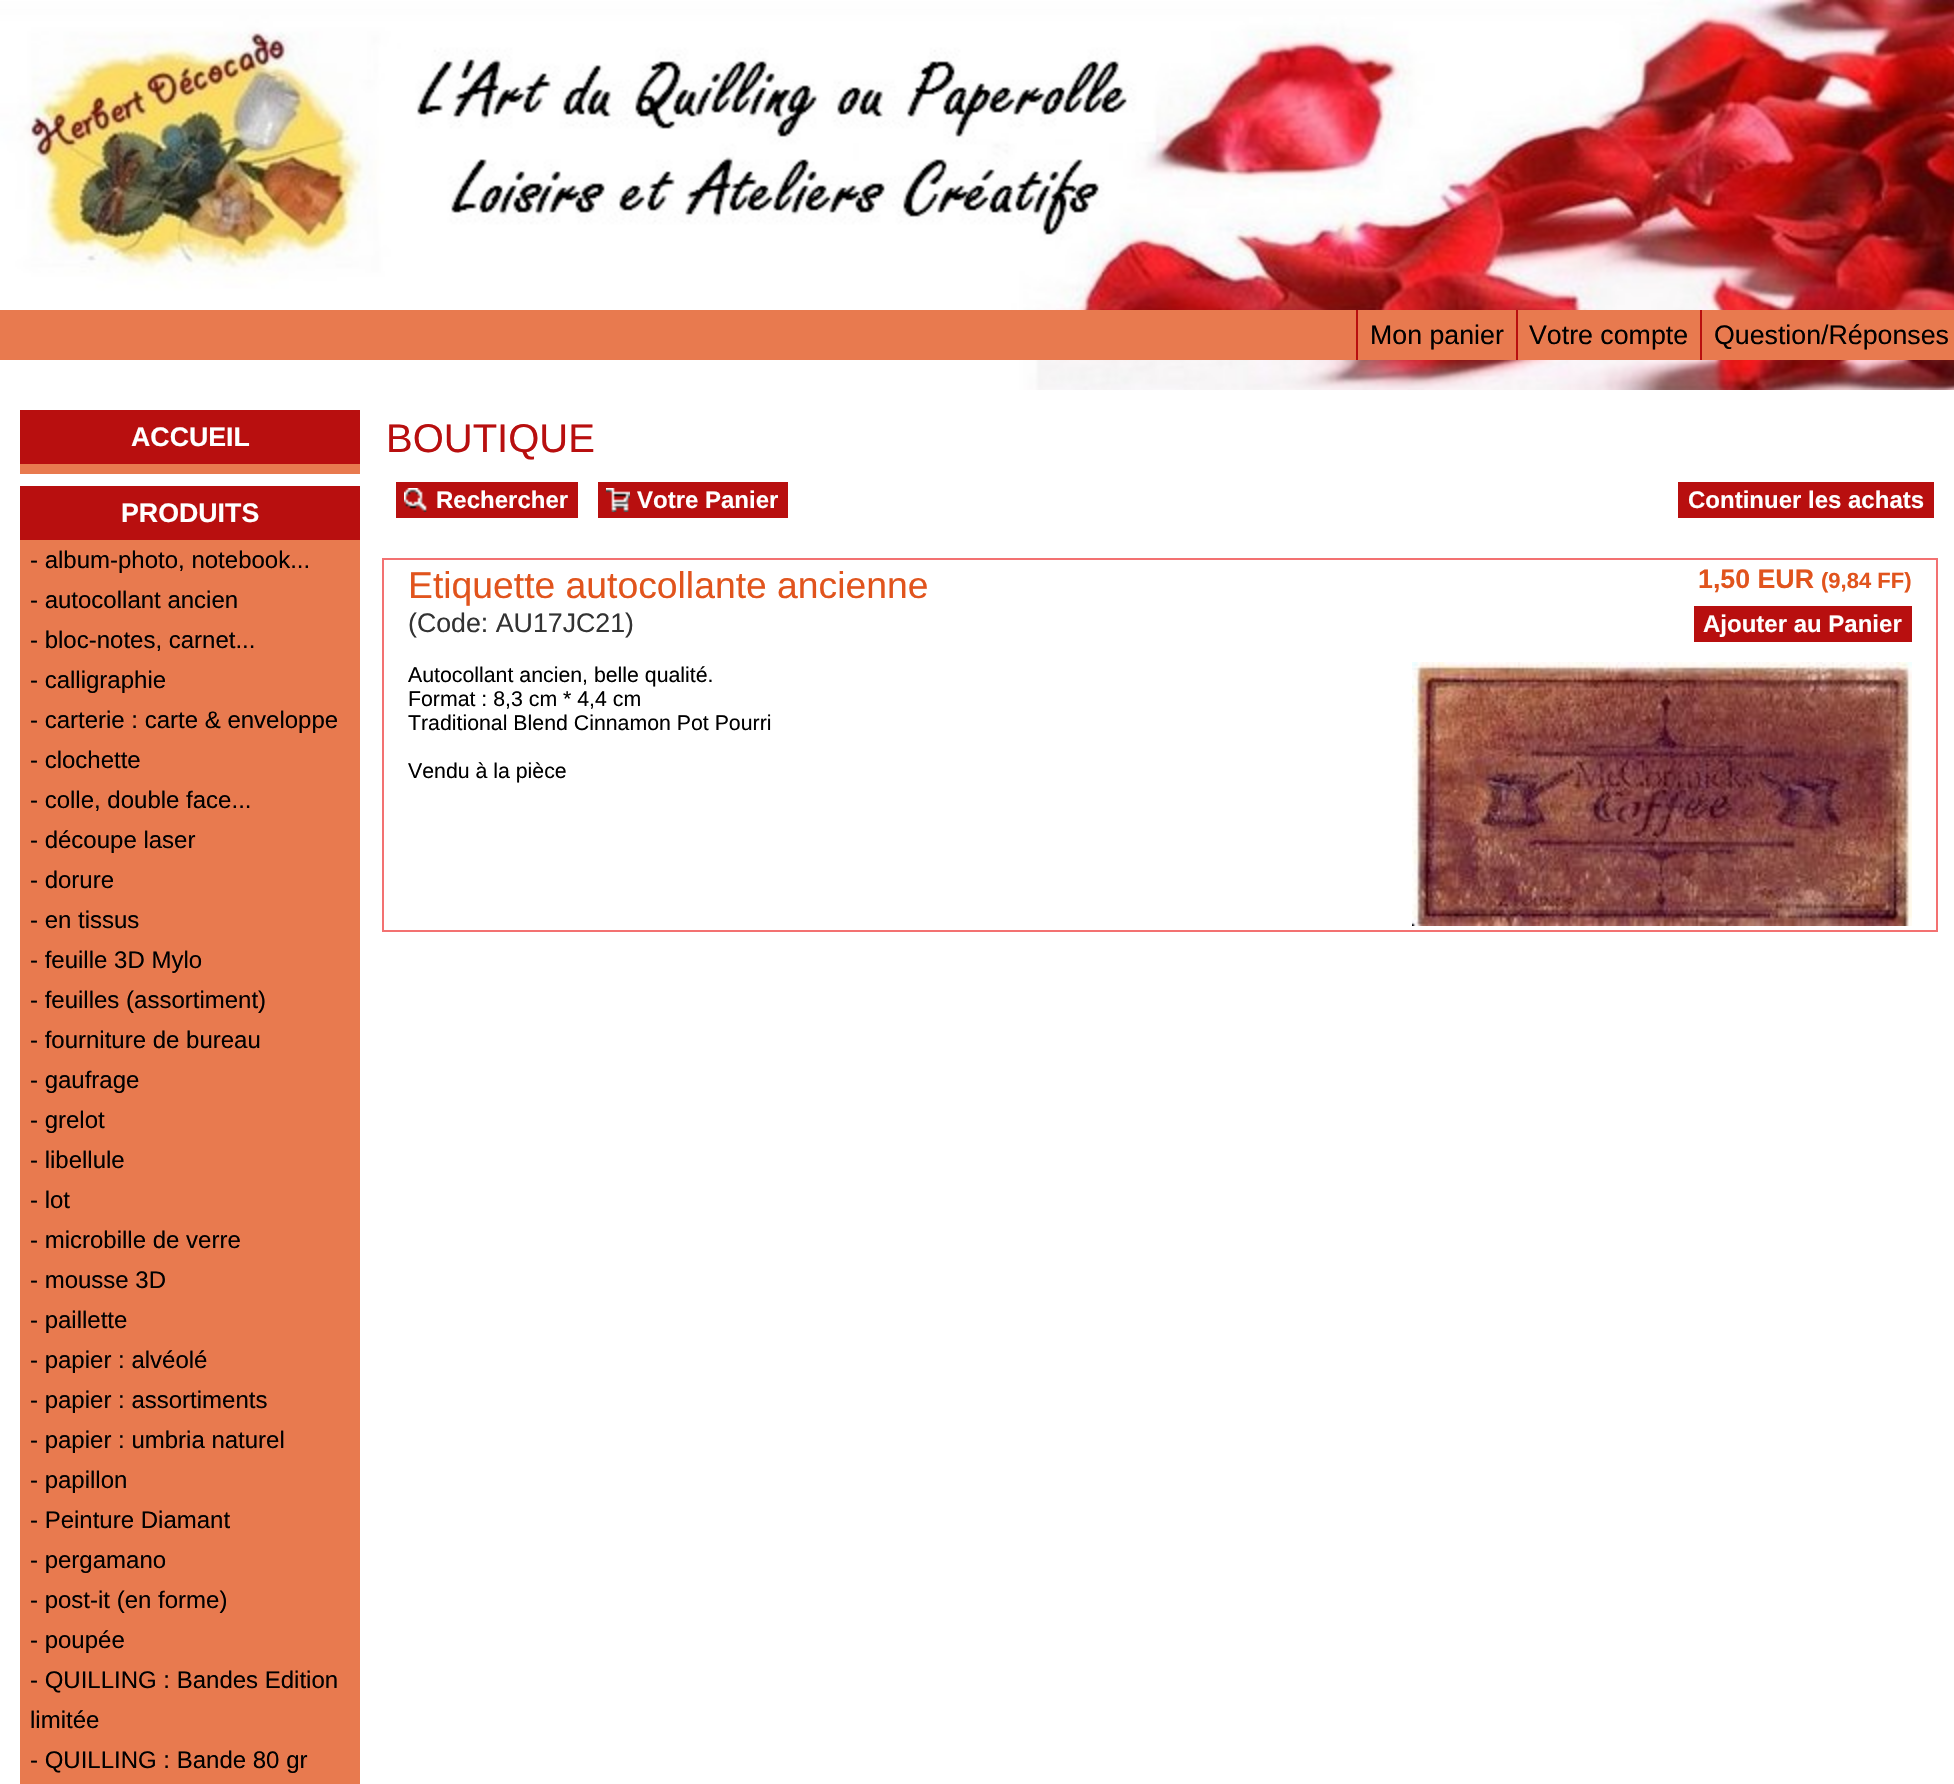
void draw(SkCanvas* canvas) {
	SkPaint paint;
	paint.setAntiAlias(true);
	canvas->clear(0xffffffff);
	canvas->drawImageRect(SkImages::DeferredFromEncodedData(SkData::MakeFromFileName("img1.png")), SkRect::MakeXYWH(0, 0, 1954, 390), SkSamplingOptions());
	paint.setColor(0xffe87a4f);
	canvas->drawRect(SkRect::MakeXYWH(0, 310, 1954, 50), paint);
	paint.setColor(0xffb80f0f);
	canvas->drawRect(SkRect::MakeXYWH(1356, 310, 2, 50), paint);
	SkFont f1(fontMgr->matchFamilyStyle("Liberation Sans", SkFontStyle::Normal()), 26.75);
	f1.setSubpixel(true);
	paint.setColor(0xff000000);
	canvas->drawString("Mon panier", 1370, 344, f1, paint);
	paint.setColor(0xffb80f0f);
	canvas->drawRect(SkRect::MakeXYWH(1516, 310, 2, 50), paint);
	paint.setColor(0xff000000);
	canvas->drawString("Votre compte", 1529, 344, f1, paint);
	paint.setColor(0xffb80f0f);
	canvas->drawRect(SkRect::MakeXYWH(1700, 310, 2, 50), paint);
	paint.setColor(0xff000000);
	canvas->drawString("Question/Réponses", 1714, 344, f1, paint);
	paint.setColor(0xffe87a4f);
	canvas->drawRect(SkRect::MakeXYWH(20, 464, 340, 1320), paint);
	paint.setColor(0xffb80f0f);
	canvas->drawRect(SkRect::MakeXYWH(20, 410, 340, 54), paint);
	SkFont f2(fontMgr->matchFamilyStyle("Liberation Sans", SkFontStyle::Bold()), 26.75);
	f2.setSubpixel(true);
	paint.setColor(0xffffffff);
	canvas->drawString("ACCUEIL", 131, 446, f2, paint);
	canvas->drawRect(SkRect::MakeXYWH(20, 474, 340, 12), paint);
	paint.setColor(0xffb80f0f);
	canvas->drawRect(SkRect::MakeXYWH(20, 486, 340, 54), paint);
	paint.setColor(0xffffffff);
	canvas->drawString("PRODUITS", 121, 522, f2, paint);
	SkFont f3(fontMgr->matchFamilyStyle("Liberation Sans", SkFontStyle::Normal()), 24);
	f3.setSubpixel(true);
	paint.setColor(0xff000000);
	canvas->drawString("- album-photo, notebook...", 30, 568, f3, paint);
	canvas->drawString("- autocollant ancien", 30, 608, f3, paint);
	canvas->drawString("- bloc-notes, carnet...", 30, 648, f3, paint);
	canvas->drawString("- calligraphie", 30, 688, f3, paint);
	canvas->drawString("- carterie : carte & enveloppe", 30, 728, f3, paint);
	canvas->drawString("- clochette", 30, 768, f3, paint);
	canvas->drawString("- colle, double face...", 30, 808, f3, paint);
	canvas->drawString("- découpe laser", 30, 848, f3, paint);
	canvas->drawString("- dorure", 30, 888, f3, paint);
	canvas->drawString("- en tissus", 30, 928, f3, paint);
	canvas->drawString("- feuille 3D Mylo", 30, 968, f3, paint);
	canvas->drawString("- feuilles (assortiment)", 30, 1008, f3, paint);
	canvas->drawString("- fourniture de bureau", 30, 1048, f3, paint);
	canvas->drawString("- gaufrage", 30, 1088, f3, paint);
	canvas->drawString("- grelot", 30, 1128, f3, paint);
	canvas->drawString("- libellule", 30, 1168, f3, paint);
	canvas->drawString("- lot", 30, 1208, f3, paint);
	canvas->drawString("- microbille de verre", 30, 1248, f3, paint);
	canvas->drawString("- mousse 3D", 30, 1288, f3, paint);
	canvas->drawString("- paillette", 30, 1328, f3, paint);
	canvas->drawString("- papier : alvéolé", 30, 1368, f3, paint);
	canvas->drawString("- papier : assortiments", 30, 1408, f3, paint);
	canvas->drawString("- papier : umbria naturel", 30, 1448, f3, paint);
	canvas->drawString("- papillon", 30, 1488, f3, paint);
	canvas->drawString("- Peinture Diamant", 30, 1528, f3, paint);
	canvas->drawString("- pergamano", 30, 1568, f3, paint);
	canvas->drawString("- post-it (en forme)", 30, 1608, f3, paint);
	canvas->drawString("- poupée", 30, 1648, f3, paint);
	canvas->drawString("- QUILLING : Bandes Edition", 30, 1688, f3, paint);
	canvas->drawString("limitée", 30, 1728, f3, paint);
	canvas->drawString("- QUILLING : Bande 80 gr", 30, 1768, f3, paint);
	SkFont f4(fontMgr->matchFamilyStyle("Liberation Sans", SkFontStyle::Normal()), 40);
	f4.setSubpixel(true);
	paint.setColor(0xffb80f0f);
	canvas->drawString("BOUTIQUE", 386, 452, f4, paint);
	canvas->drawRect(SkRect::MakeXYWH(396, 482, 182, 36), paint);
	canvas->drawImageRect(SkImages::DeferredFromEncodedData(SkData::MakeFromFileName("img2.png")), SkRect::MakeXYWH(404, 488, 23, 24), SkSamplingOptions());
	SkFont f5(fontMgr->matchFamilyStyle("Liberation Sans", SkFontStyle::Bold()), 24);
	f5.setSubpixel(true);
	paint.setColor(0xffffffff);
	canvas->drawString("Rechercher", 436, 508, f5, paint);
	paint.setColor(0xffb80f0f);
	canvas->drawRect(SkRect::MakeXYWH(598, 482, 190, 36), paint);
	canvas->drawImageRect(SkImages::DeferredFromEncodedData(SkData::MakeFromFileName("img3.png")), SkRect::MakeXYWH(606, 488, 24, 24), SkSamplingOptions());
	paint.setColor(0xffffffff);
	canvas->drawString("Votre Panier", 637, 508, f5, paint);
	paint.setColor(0xffb80f0f);
	canvas->drawRect(SkRect::MakeXYWH(1678, 482, 256, 36), paint);
	paint.setColor(0xffffffff);
	canvas->drawString("Continuer les achats", 1688, 508, f5, paint);
	paint.setStroke(true);
	paint.setStrokeWidth(2);
	paint.setColor(0xfff37171);
	canvas->drawRect(SkRect::MakeXYWH(383, 559, 1554, 372), paint);
	SkFont f6(fontMgr->matchFamilyStyle("Liberation Sans", SkFontStyle::Normal()), 37.3);
	f6.setSubpixel(true);
	paint.setStroke(false);
	paint.setColor(0xffe1541d);
	canvas->drawString("Etiquette autocollante ancienne", 408, 598, f6, paint);
	paint.setColor(0xff333333);
	canvas->drawString("(Code: AU17JC21)", 408, 632, f1, paint);
	paint.setColor(0xffe1541d);
	canvas->drawString("1,50 EUR", 1698, 588, f2, paint);
	SkFont f7(fontMgr->matchFamilyStyle("Liberation Sans", SkFontStyle::Bold()), 22);
	f7.setSubpixel(true);
	canvas->drawString("(9,84 FF)", 1821, 588, f7, paint);
	paint.setColor(0xffb80f0f);
	canvas->drawRect(SkRect::MakeXYWH(1694, 606, 218, 36), paint);
	paint.setColor(0xffffffff);
	canvas->drawString("Ajouter au Panier", 1703, 632, f5, paint);
	SkFont f8(fontMgr->matchFamilyStyle("Liberation Sans", SkFontStyle::Normal()), 21.3);
	f8.setSubpixel(true);
	paint.setColor(0xff000000);
	canvas->drawString("Autocollant ancien, belle qualité.", 408, 682, f8, paint);
	canvas->drawImageRect(SkImages::DeferredFromEncodedData(SkData::MakeFromFileName("img4.png")), SkRect::MakeXYWH(1412, 662, 500, 264), SkSamplingOptions());
	canvas->drawString("Format : 8,3 cm * 4,4 cm", 408, 706, f8, paint);
	canvas->drawString("Traditional Blend Cinnamon Pot Pourri", 408, 730, f8, paint);
	canvas->drawString("Vendu à la pièce", 408, 778, f8, paint);
}
